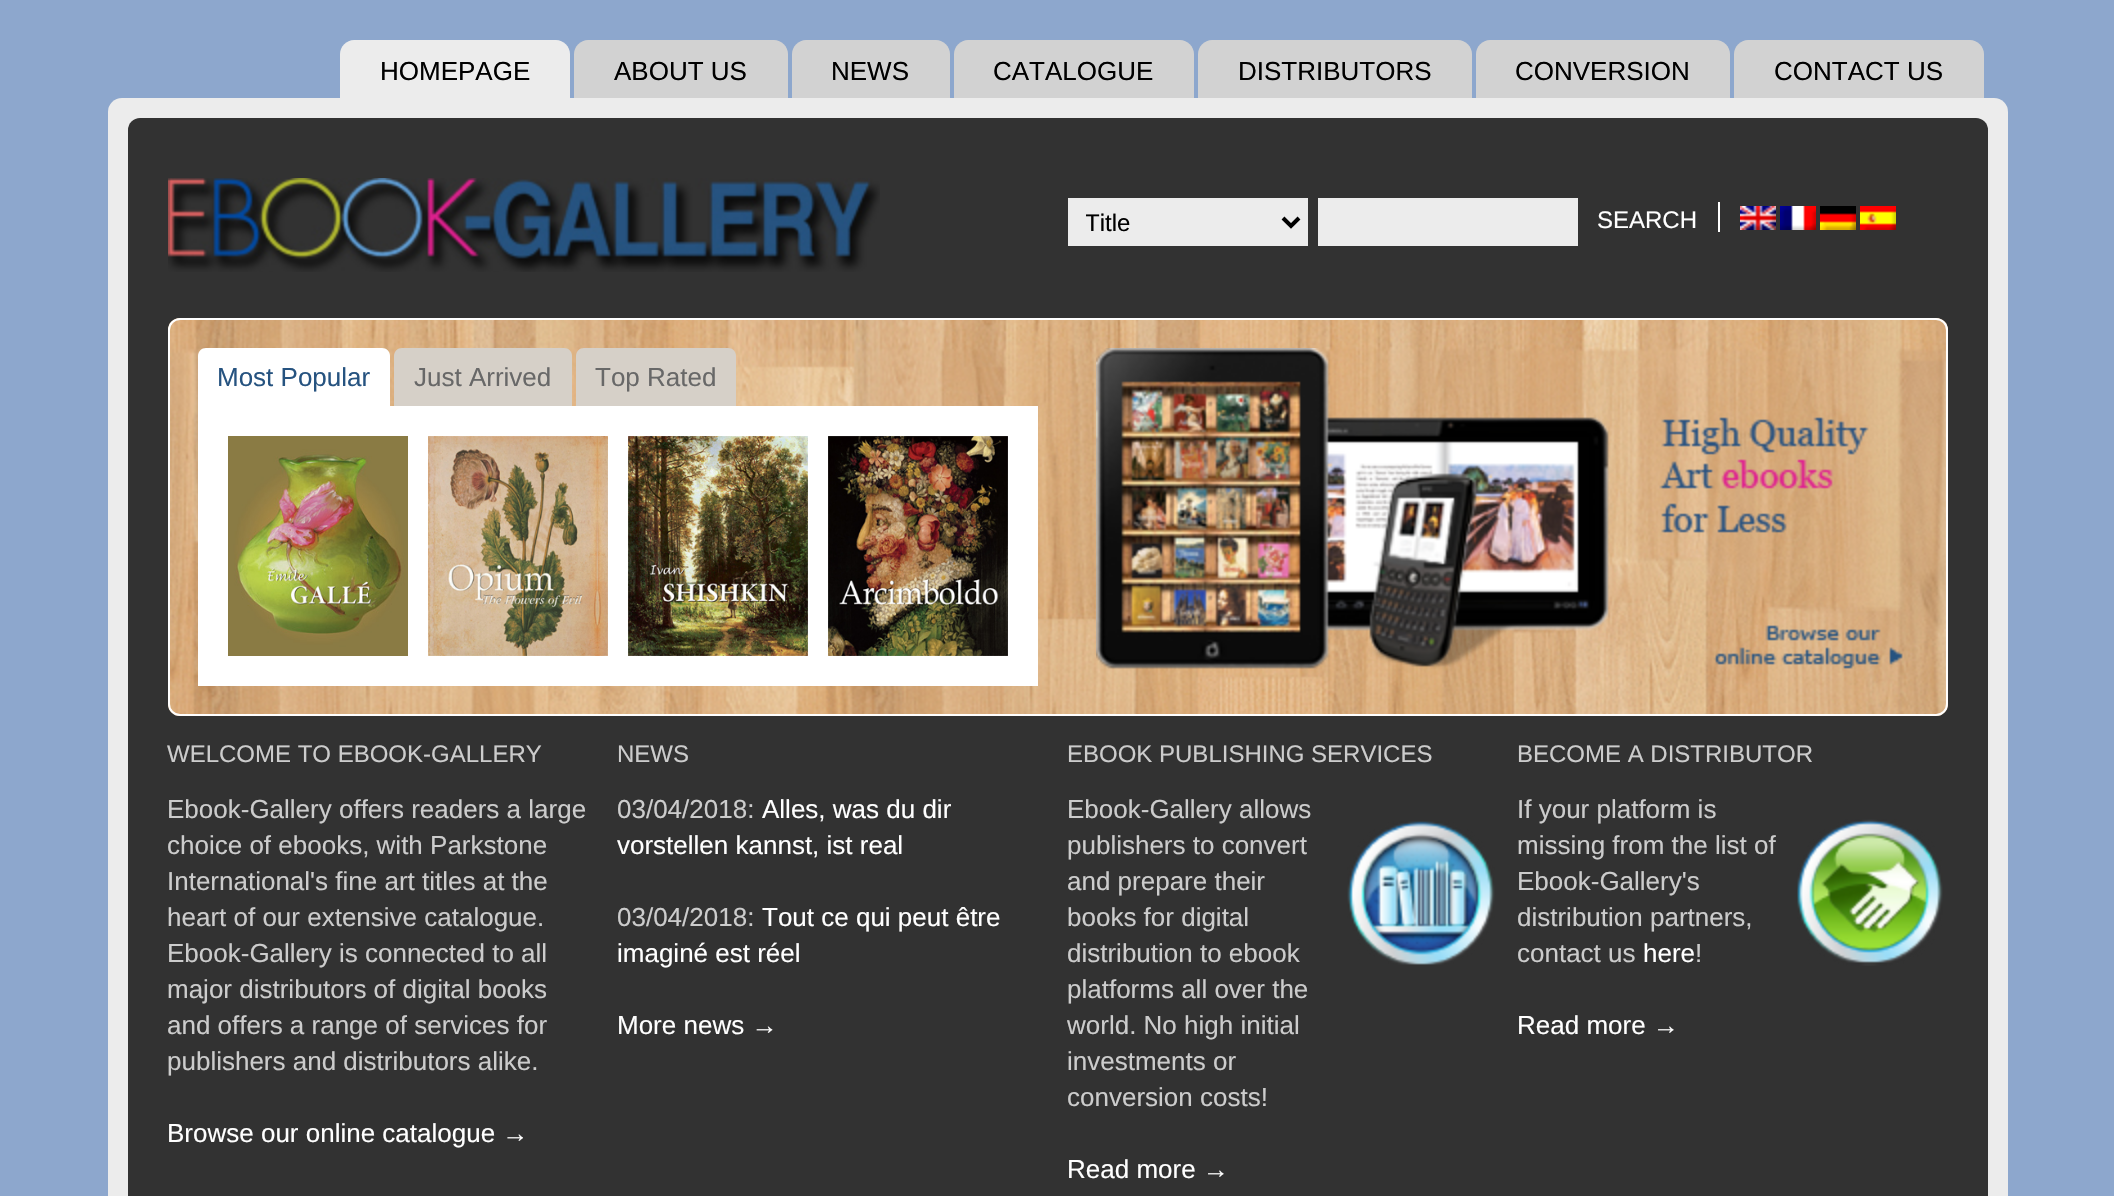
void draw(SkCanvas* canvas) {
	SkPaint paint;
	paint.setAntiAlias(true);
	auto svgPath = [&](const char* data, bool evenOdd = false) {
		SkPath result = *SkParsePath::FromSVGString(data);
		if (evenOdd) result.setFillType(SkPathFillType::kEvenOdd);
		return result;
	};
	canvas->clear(0xff8da7cd);
	paint.setColor(0xffececec);
	canvas->drawPath(svgPath("M354 40H556C563.5 40 570 46.5 570 54V98H340V54C340 46.5 346.5 40 354 40Z"), paint);
	SkFont f1(fontMgr->matchFamilyStyle("Liberation Sans", SkFontStyle::Normal()), 26);
	f1.setSubpixel(true);
	paint.setColor(0xff000000);
	canvas->drawString("HOMEPAGE", 380, 80, f1, paint);
	paint.setColor(0xffd2d2d2);
	canvas->drawPath(svgPath("M588 40H774C781.5 40 788 46.5 788 54V98H574V54C574 46.5 580.5 40 588 40Z"), paint);
	paint.setColor(0xff000000);
	canvas->drawString("ABOUT US", 614, 80, f1, paint);
	paint.setColor(0xffd2d2d2);
	canvas->drawPath(svgPath("M806 40H936C943.5 40 950 46.5 950 54V98H792V54C792 46.5 798.5 40 806 40Z"), paint);
	paint.setColor(0xff000000);
	canvas->drawString("NEWS", 831, 80, f1, paint);
	paint.setColor(0xffd2d2d2);
	canvas->drawPath(svgPath("M968 40H1180C1187.5 40 1194 46.5 1194 54V98H954V54C954 46.5 960.5 40 968 40Z"), paint);
	paint.setColor(0xff000000);
	canvas->drawString("CATALOGUE", 993, 80, f1, paint);
	paint.setColor(0xffd2d2d2);
	canvas->drawPath(svgPath("M1212 40H1458C1465.5 40 1472 46.5 1472 54V98H1198V54C1198 46.5 1204.5 40 1212 40Z"), paint);
	paint.setColor(0xff000000);
	canvas->drawString("DISTRIBUTORS", 1238, 80, f1, paint);
	paint.setColor(0xffd2d2d2);
	canvas->drawPath(svgPath("M1490 40H1716C1723.5 40 1730 46.5 1730 54V98H1476V54C1476 46.5 1482.5 40 1490 40Z"), paint);
	paint.setColor(0xff000000);
	canvas->drawString("CONVERSION", 1515, 80, f1, paint);
	paint.setColor(0xffd2d2d2);
	canvas->drawPath(svgPath("M1748 40H1970C1977.5 40 1984 46.5 1984 54V98H1734V54C1734 46.5 1740.5 40 1748 40Z"), paint);
	paint.setColor(0xff000000);
	canvas->drawString("CONTACT US", 1774, 80, f1, paint);
	paint.setColor(0xffececec);
	canvas->drawRoundRect(SkRect::MakeXYWH(108, 98, 1900, 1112), 14, 14, paint);
	paint.setColor(0xff323232);
	canvas->drawRoundRect(SkRect::MakeXYWH(128, 118, 1860, 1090), 12, 12, paint);
	canvas->drawImageRect(SkImages::DeferredFromEncodedData(SkData::MakeFromFileName("img1.png")), SkRect::MakeXYWH(168, 178, 712, 94), SkSamplingOptions());
	paint.setColor(0xffececec);
	canvas->drawRect(SkRect::MakeXYWH(1068, 198, 240, 48), paint);
	paint.setStroke(true);
	paint.setStrokeWidth(4);
	paint.setColor(0xff000000);
	canvas->drawPath(svgPath("M1283 218L1291 226L1299 218"), paint);
	canvas->save();
	canvas->clipRect(SkRect::MakeXYWH(1086, 208, 180, 32));
	SkFont f2(fontMgr->matchFamilyStyle("Liberation Sans", SkFontStyle::Normal()), 24);
	f2.setSubpixel(true);
	paint.setStroke(false);
	canvas->drawString("Title", 1085, 231, f2, paint);
	canvas->restore();
	paint.setColor(0xffececec);
	canvas->drawRect(SkRect::MakeXYWH(1318, 198, 260, 48), paint);
	paint.setColor(0xffffffff);
	canvas->drawString("SEARCH", 1597, 228, f2, paint);
	canvas->drawRect(SkRect::MakeXYWH(1718, 202, 2, 30), paint);
	canvas->drawImageRect(SkImages::DeferredFromEncodedData(SkData::MakeFromFileName("img2.png")), SkRect::MakeXYWH(1740, 206, 36, 24), SkSamplingOptions());
	canvas->drawImageRect(SkImages::DeferredFromEncodedData(SkData::MakeFromFileName("img3.png")), SkRect::MakeXYWH(1780, 206, 36, 24), SkSamplingOptions());
	canvas->drawImageRect(SkImages::DeferredFromEncodedData(SkData::MakeFromFileName("img4.png")), SkRect::MakeXYWH(1820, 206, 36, 24), SkSamplingOptions());
	canvas->drawImageRect(SkImages::DeferredFromEncodedData(SkData::MakeFromFileName("img5.png")), SkRect::MakeXYWH(1860, 206, 36, 24), SkSamplingOptions());
	canvas->drawImageRect(SkImages::DeferredFromEncodedData(SkData::MakeFromFileName("img6.png")), SkRect::MakeXYWH(168, 318, 1780, 398), SkSamplingOptions());
	paint.setStroke(true);
	paint.setStrokeWidth(2);
	canvas->drawRoundRect(SkRect::MakeXYWH(169, 319, 1778, 396), 11, 11, paint);
	paint.setStroke(false);
	canvas->drawPath(svgPath("M206 348H382C386.5 348 390 351.5 390 356V406H198V356C198 351.5 201.5 348 206 348Z"), paint);
	paint.setColor(0xff265380);
	canvas->drawString("Most Popular", 217, 386, f1, paint);
	paint.setColor(0xffd6d0c8);
	canvas->drawPath(svgPath("M402 348H564C568.5 348 572 351.5 572 356V406H394V356C394 351.5 397.5 348 402 348Z"), paint);
	paint.setColor(0xff686868);
	canvas->drawString("Just Arrived", 414, 386, f1, paint);
	paint.setColor(0xffd6d0c8);
	canvas->drawPath(svgPath("M584 348H728C732.5 348 736 351.5 736 356V406H576V356C576 351.5 579.5 348 584 348Z"), paint);
	paint.setColor(0xff686868);
	canvas->drawString("Top Rated", 595, 386, f1, paint);
	paint.setColor(0xffffffff);
	canvas->drawRect(SkRect::MakeXYWH(198, 406, 840, 280), paint);
	canvas->drawImageRect(SkImages::DeferredFromEncodedData(SkData::MakeFromFileName("img7.png")), SkRect::MakeXYWH(228, 436, 180, 220), SkSamplingOptions());
	canvas->drawImageRect(SkImages::DeferredFromEncodedData(SkData::MakeFromFileName("img8.png")), SkRect::MakeXYWH(428, 436, 180, 220), SkSamplingOptions());
	canvas->drawImageRect(SkImages::DeferredFromEncodedData(SkData::MakeFromFileName("img9.png")), SkRect::MakeXYWH(628, 436, 180, 220), SkSamplingOptions());
	canvas->drawImageRect(SkImages::DeferredFromEncodedData(SkData::MakeFromFileName("img10.png")), SkRect::MakeXYWH(828, 436, 180, 220), SkSamplingOptions());
	canvas->drawImageRect(SkImages::DeferredFromEncodedData(SkData::MakeFromFileName("img11.png")), SkRect::MakeXYWH(1096, 348, 807, 321), SkSamplingOptions());
	paint.setColor(0xffcccccc);
	canvas->drawString("WELCOME TO EBOOK-GALLERY", 167, 762, f2, paint);
	canvas->drawString("Ebook-Gallery offers readers a large", 167, 818, f1, paint);
	canvas->drawString("choice of ebooks, with Parkstone", 167, 854, f1, paint);
	canvas->drawString("International's fine art titles at the", 167, 890, f1, paint);
	canvas->drawString("heart of our extensive catalogue.", 167, 926, f1, paint);
	canvas->drawString("Ebook-Gallery is connected to all", 167, 962, f1, paint);
	canvas->drawString("major distributors of digital books", 167, 998, f1, paint);
	canvas->drawString("and offers a range of services for", 167, 1034, f1, paint);
	canvas->drawString("publishers and distributors alike.", 167, 1070, f1, paint);
	paint.setColor(0xffffffff);
	canvas->drawString("Browse our online catalogue →", 167, 1142, f1, paint);
	paint.setColor(0xffcccccc);
	canvas->drawString("NEWS", 617, 762, f2, paint);
	canvas->drawString("03/04/2018:", 617, 818, f1, paint);
	paint.setColor(0xffffffff);
	canvas->drawString("Alles, was du dir", 762, 818, f1, paint);
	canvas->drawString("vorstellen kannst, ist real", 617, 854, f1, paint);
	paint.setColor(0xffcccccc);
	canvas->drawString("03/04/2018:", 617, 926, f1, paint);
	paint.setColor(0xffffffff);
	canvas->drawString("Tout ce qui peut être", 762, 926, f1, paint);
	canvas->drawString("imaginé est réel", 617, 962, f1, paint);
	canvas->drawString("More news →", 617, 1034, f1, paint);
	canvas->drawImageRect(SkImages::DeferredFromEncodedData(SkData::MakeFromFileName("img12.png")), SkRect::MakeXYWH(1347, 821, 148, 144), SkSamplingOptions());
	paint.setColor(0xffcccccc);
	canvas->drawString("EBOOK PUBLISHING SERVICES", 1067, 762, f2, paint);
	canvas->drawString("Ebook-Gallery allows", 1067, 818, f1, paint);
	canvas->drawString("publishers to convert", 1067, 854, f1, paint);
	canvas->drawString("and prepare their", 1067, 890, f1, paint);
	canvas->drawString("books for digital", 1067, 926, f1, paint);
	canvas->drawString("distribution to ebook", 1067, 962, f1, paint);
	canvas->drawString("platforms all over the", 1067, 998, f1, paint);
	canvas->drawString("world. No high initial", 1067, 1034, f1, paint);
	canvas->drawString("investments or", 1067, 1070, f1, paint);
	canvas->drawString("conversion costs!", 1067, 1106, f1, paint);
	paint.setColor(0xffffffff);
	canvas->drawString("Read more →", 1067, 1178, f1, paint);
	canvas->drawImageRect(SkImages::DeferredFromEncodedData(SkData::MakeFromFileName("img13.png")), SkRect::MakeXYWH(1797, 819, 146, 147), SkSamplingOptions());
	paint.setColor(0xffcccccc);
	canvas->drawString("BECOME A DISTRIBUTOR", 1517, 762, f2, paint);
	canvas->drawString("If your platform is", 1517, 818, f1, paint);
	canvas->drawString("missing from the list of", 1517, 854, f1, paint);
	canvas->drawString("Ebook-Gallery's", 1517, 890, f1, paint);
	canvas->drawString("distribution partners,", 1517, 926, f1, paint);
	canvas->drawString("contact us", 1517, 962, f1, paint);
	paint.setColor(0xffffffff);
	canvas->drawString("here", 1643, 962, f1, paint);
	paint.setColor(0xffcccccc);
	canvas->drawString("!", 1695, 962, f1, paint);
	paint.setColor(0xffffffff);
	canvas->drawString("Read more →", 1517, 1034, f1, paint);
}
